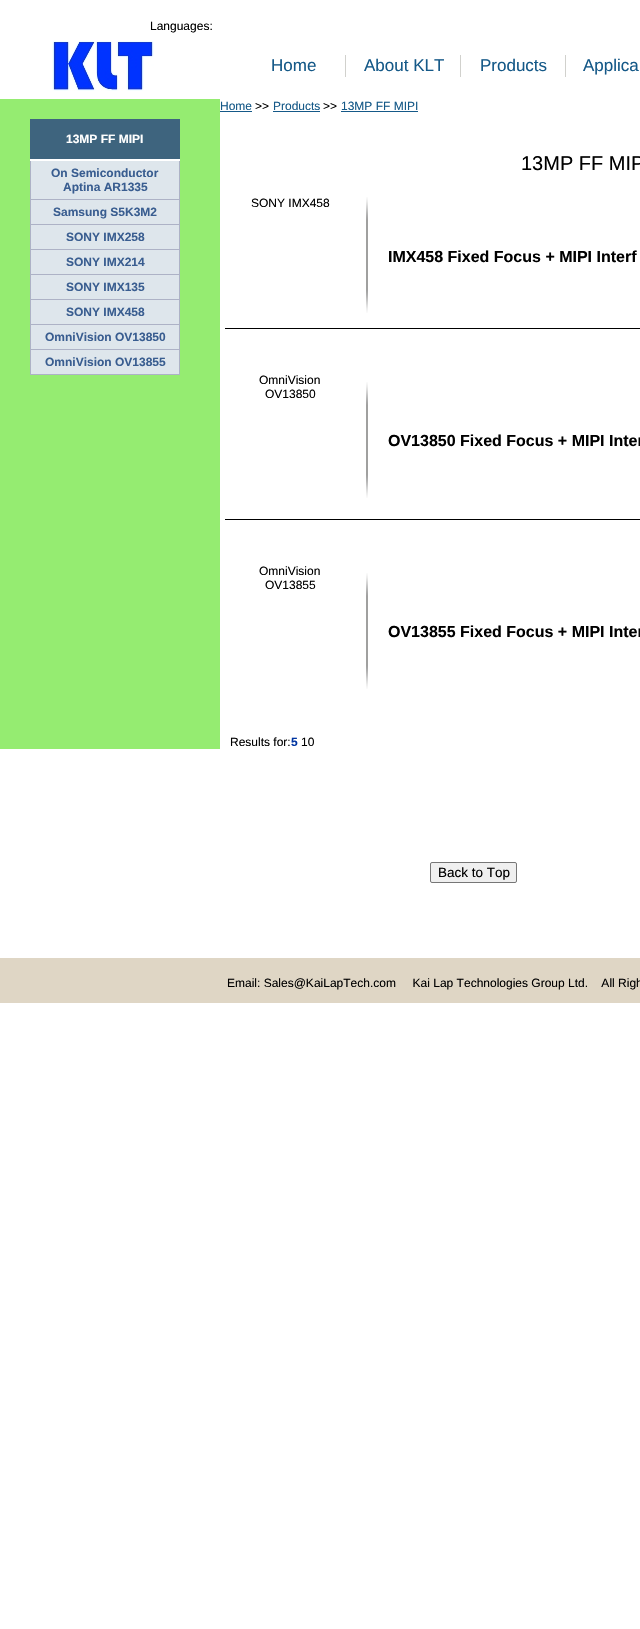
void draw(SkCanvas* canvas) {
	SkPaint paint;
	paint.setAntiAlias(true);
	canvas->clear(0xffffffff);
	SkFont f1(fontMgr->matchFamilyStyle("Liberation Sans", SkFontStyle::Normal()), 12);
	f1.setSubpixel(true);
	paint.setColor(0xff000000);
	canvas->drawString("Languages:", 150, 30, f1, paint);
	canvas->drawImageRect(SkImages::DeferredFromEncodedData(SkData::MakeFromFileName("img1.png")), SkRect::MakeXYWH(52, 41, 102, 50), SkSamplingOptions());
	paint.setColor(0xffd1d1cd);
	canvas->drawRect(SkRect::MakeXYWH(345, 55, 1, 22), paint);
	SkFont f2(fontMgr->matchFamilyStyle("Liberation Sans", SkFontStyle::Normal()), 17);
	f2.setSubpixel(true);
	paint.setColor(0xff155988);
	canvas->drawString("Home", 271, 71, f2, paint);
	paint.setColor(0xffd1d1cd);
	canvas->drawRect(SkRect::MakeXYWH(460, 55, 1, 22), paint);
	paint.setColor(0xff155988);
	canvas->drawString("About KLT", 364, 71, f2, paint);
	paint.setColor(0xffd1d1cd);
	canvas->drawRect(SkRect::MakeXYWH(565, 55, 1, 22), paint);
	paint.setColor(0xff155988);
	canvas->drawString("Products", 480, 71, f2, paint);
	canvas->drawString("Applica", 583, 71, f2, paint);
	paint.setColor(0xff95ec71);
	canvas->drawRect(SkRect::MakeXYWH(0, 99, 220, 650), paint);
	paint.setColor(0xff3e647e);
	canvas->drawRect(SkRect::MakeXYWH(30, 119, 150, 40), paint);
	paint.setColor(0xffffffff);
	canvas->drawRect(SkRect::MakeXYWH(30, 159, 150, 2), paint);
	SkFont f3(fontMgr->matchFamilyStyle("Liberation Sans", SkFontStyle::Bold()), 12);
	f3.setSubpixel(true);
	canvas->drawString("13MP FF MIPI", 66, 143, f3, paint);
	paint.setColor(0xffdee6ec);
	canvas->drawRect(SkRect::MakeXYWH(31, 161, 148, 38), paint);
	paint.setColor(0xffadb2c6);
	canvas->drawRect(SkRect::MakeXYWH(179, 161, 1, 214), paint);
	canvas->drawRect(SkRect::MakeXYWH(30, 199, 150, 1), paint);
	canvas->drawRect(SkRect::MakeXYWH(30, 161, 1, 39), paint);
	paint.setColor(0xff395d90);
	canvas->drawString("On Semiconductor", 51, 177, f3, paint);
	canvas->drawString("Aptina AR1335", 63, 191, f3, paint);
	paint.setColor(0xffdee6ec);
	canvas->drawRect(SkRect::MakeXYWH(31, 200, 148, 24), paint);
	paint.setColor(0xffadb2c6);
	canvas->drawRect(SkRect::MakeXYWH(30, 224, 150, 1), paint);
	canvas->drawRect(SkRect::MakeXYWH(30, 200, 1, 25), paint);
	paint.setColor(0xff395d90);
	canvas->drawString("Samsung S5K3M2", 53, 216, f3, paint);
	paint.setColor(0xffdee6ec);
	canvas->drawRect(SkRect::MakeXYWH(31, 225, 148, 24), paint);
	paint.setColor(0xffadb2c6);
	canvas->drawRect(SkRect::MakeXYWH(30, 249, 150, 1), paint);
	canvas->drawRect(SkRect::MakeXYWH(30, 225, 1, 25), paint);
	paint.setColor(0xff395d90);
	canvas->drawString("SONY IMX258", 66, 241, f3, paint);
	paint.setColor(0xffdee6ec);
	canvas->drawRect(SkRect::MakeXYWH(31, 250, 148, 24), paint);
	paint.setColor(0xffadb2c6);
	canvas->drawRect(SkRect::MakeXYWH(30, 274, 150, 1), paint);
	canvas->drawRect(SkRect::MakeXYWH(30, 250, 1, 25), paint);
	paint.setColor(0xff395d90);
	canvas->drawString("SONY IMX214", 66, 266, f3, paint);
	paint.setColor(0xffdee6ec);
	canvas->drawRect(SkRect::MakeXYWH(31, 275, 148, 24), paint);
	paint.setColor(0xffadb2c6);
	canvas->drawRect(SkRect::MakeXYWH(30, 299, 150, 1), paint);
	canvas->drawRect(SkRect::MakeXYWH(30, 275, 1, 25), paint);
	paint.setColor(0xff395d90);
	canvas->drawString("SONY IMX135", 66, 291, f3, paint);
	paint.setColor(0xffdee6ec);
	canvas->drawRect(SkRect::MakeXYWH(31, 300, 148, 24), paint);
	paint.setColor(0xffadb2c6);
	canvas->drawRect(SkRect::MakeXYWH(30, 324, 150, 1), paint);
	canvas->drawRect(SkRect::MakeXYWH(30, 300, 1, 25), paint);
	paint.setColor(0xff395d90);
	canvas->drawString("SONY IMX458", 66, 316, f3, paint);
	paint.setColor(0xffdee6ec);
	canvas->drawRect(SkRect::MakeXYWH(31, 325, 148, 24), paint);
	paint.setColor(0xffadb2c6);
	canvas->drawRect(SkRect::MakeXYWH(30, 349, 150, 1), paint);
	canvas->drawRect(SkRect::MakeXYWH(30, 325, 1, 25), paint);
	paint.setColor(0xff395d90);
	canvas->drawString("OmniVision OV13850", 45, 341, f3, paint);
	paint.setColor(0xffdee6ec);
	canvas->drawRect(SkRect::MakeXYWH(31, 350, 148, 24), paint);
	paint.setColor(0xffadb2c6);
	canvas->drawRect(SkRect::MakeXYWH(30, 374, 150, 1), paint);
	canvas->drawRect(SkRect::MakeXYWH(30, 350, 1, 25), paint);
	paint.setColor(0xff395d90);
	canvas->drawString("OmniVision OV13855", 45, 366, f3, paint);
	paint.setColor(0xff155988);
	canvas->drawString("Home", 220, 110, f1, paint);
	canvas->drawRect(SkRect::MakeXYWH(220, 111, 32, 1), paint);
	paint.setColor(0xff000000);
	canvas->drawString(">>", 255, 110, f1, paint);
	paint.setColor(0xff155988);
	canvas->drawString("Products", 273, 110, f1, paint);
	canvas->drawRect(SkRect::MakeXYWH(273, 111, 47, 1), paint);
	paint.setColor(0xff000000);
	canvas->drawString(">>", 323, 110, f1, paint);
	paint.setColor(0xff155988);
	canvas->drawString("13MP FF MIPI", 341, 110, f1, paint);
	canvas->drawRect(SkRect::MakeXYWH(341, 111, 77, 1), paint);
	SkFont f4(fontMgr->matchFamilyStyle("Liberation Sans", SkFontStyle::Normal()), 20);
	f4.setSubpixel(true);
	paint.setColor(0xff000000);
	canvas->drawString("13MP FF MIP", 521, 170, f4, paint);
	canvas->drawString("SONY IMX458", 251, 207, f1, paint);
	canvas->drawImageRect(SkImages::DeferredFromEncodedData(SkData::MakeFromFileName("img2.png")), SkRect::MakeXYWH(366, 197, 2, 116), SkSamplingOptions());
	SkFont f5(fontMgr->matchFamilyStyle("Liberation Sans", SkFontStyle::Bold()), 16);
	f5.setSubpixel(true);
	canvas->drawString("IMX458 Fixed Focus + MIPI Interf", 388, 262, f5, paint);
	canvas->drawRect(SkRect::MakeXYWH(225, 328, 415, 1), paint);
	canvas->drawString("OmniVision", 259, 384, f1, paint);
	canvas->drawString("OV13850", 265, 398, f1, paint);
	canvas->drawImageRect(SkImages::DeferredFromEncodedData(SkData::MakeFromFileName("img2.png")), SkRect::MakeXYWH(366, 382, 2, 116), SkSamplingOptions());
	canvas->drawString("OV13850 Fixed Focus + MIPI Inter", 388, 446, f5, paint);
	canvas->drawRect(SkRect::MakeXYWH(225, 519, 415, 1), paint);
	canvas->drawString("OmniVision", 259, 575, f1, paint);
	canvas->drawString("OV13855", 265, 589, f1, paint);
	canvas->drawImageRect(SkImages::DeferredFromEncodedData(SkData::MakeFromFileName("img2.png")), SkRect::MakeXYWH(366, 573, 2, 116), SkSamplingOptions());
	canvas->drawString("OV13855 Fixed Focus + MIPI Inter", 388, 637, f5, paint);
	canvas->drawString("Results for:", 230, 746, f1, paint);
	paint.setColor(0xff0035a1);
	canvas->drawString("5", 291, 746, f3, paint);
	paint.setColor(0xff000000);
	canvas->drawString("10", 301, 746, f1, paint);
	paint.setColor(0xffefefef);
	canvas->drawRoundRect(SkRect::MakeXYWH(430.5, 862.5, 86, 20), 1.5, 1.5, paint);
	paint.setStroke(true);
	paint.setStrokeWidth(1);
	paint.setColor(0xff767676);
	canvas->drawRoundRect(SkRect::MakeXYWH(430.5, 862.5, 86, 20), 1.5, 1.5, paint);
	SkFont f6(fontMgr->matchFamilyStyle("Liberation Sans", SkFontStyle::Normal()), 13.5);
	f6.setSubpixel(true);
	paint.setStroke(false);
	paint.setColor(0xff000000);
	canvas->drawString("Back to Top", 438, 877, f6, paint);
	paint.setColor(0xffdfd6c5);
	canvas->drawRect(SkRect::MakeXYWH(0, 958, 640, 45), paint);
	paint.setColor(0xff000000);
	canvas->drawString("Email: Sales@KaiLapTech.com     Kai Lap Technologies Group Ltd.    All Righ", 227, 987, f1, paint);
}
